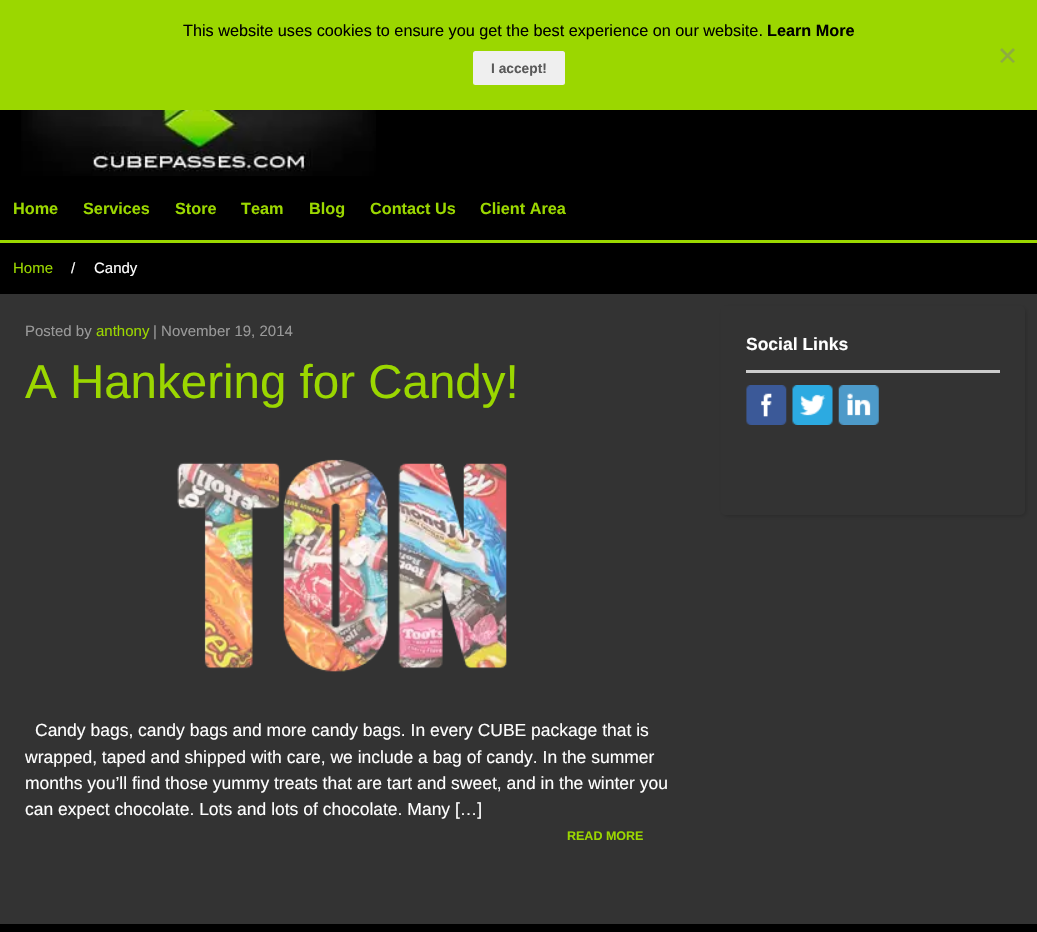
void draw(SkCanvas* canvas) {
	SkPaint paint;
	paint.setAntiAlias(true);
	auto svgPath = [&](const char* data, bool evenOdd = false) {
		SkPath result = *SkParsePath::FromSVGString(data);
		if (evenOdd) result.setFillType(SkPathFillType::kEvenOdd);
		return result;
	};
	canvas->clear(0xff000000);
	paint.setColor(0xff9bd700);
	canvas->drawRect(SkRect::MakeXYWH(0, 0, 1037, 110), paint);
	SkFont f1(fontMgr->matchFamilyStyle("Liberation Sans", SkFontStyle::Normal()), 16.25);
	f1.setSubpixel(true);
	paint.setColor(0xff000000);
	canvas->drawString("This website uses cookies to ensure you get the best experience on our website.", 183, 36, f1, paint);
	SkFont f2(fontMgr->matchFamilyStyle("Liberation Sans", SkFontStyle::Bold()), 16.25);
	f2.setSubpixel(true);
	canvas->drawString("Learn More", 767, 36, f2, paint);
	paint.setColor(0xff8eac40);
	canvas->drawPath(svgPath("M1013 48L1015 50L1002 63L1000 61.5Z"), paint);
	canvas->drawPath(svgPath("M1000 50L1002 48L1015 61.5L1013 63Z"), paint);
	paint.setColor(0xffefefef);
	canvas->drawRoundRect(SkRect::MakeXYWH(473, 51, 92, 34), 2.5, 2.5, paint);
	SkFont f3(fontMgr->matchFamilyStyle("Liberation Sans", SkFontStyle::Bold()), 13.75);
	f3.setSubpixel(true);
	paint.setColor(0xff595959);
	canvas->drawString("I accept!", 491, 73, f3, paint);
	paint.setColor(0xff9bd700);
	canvas->drawRect(SkRect::MakeXYWH(0, 240, 1037, 3), paint);
	canvas->drawImageRect(SkImages::DeferredFromEncodedData(SkData::MakeFromFileName("img1.png")), SkRect::MakeXYWH(21, 110, 355, 66), SkSamplingOptions());
	canvas->drawString("Home", 13, 214, f2, paint);
	canvas->drawString("Services", 83, 214, f2, paint);
	canvas->drawString("Store", 175, 214, f2, paint);
	canvas->drawString("Team", 241, 214, f2, paint);
	canvas->drawString("Blog", 309, 214, f2, paint);
	canvas->drawString("Contact Us", 370, 214, f2, paint);
	canvas->drawString("Client Area", 480, 214, f2, paint);
	paint.setColor(0xff333333);
	canvas->drawRect(SkRect::MakeXYWH(0, 294, 1037, 630), paint);
	SkFont f4(fontMgr->matchFamilyStyle("Liberation Sans", SkFontStyle::Normal()), 15);
	f4.setSubpixel(true);
	paint.setColor(0xff9bd700);
	canvas->drawString("Home", 13, 273, f4, paint);
	paint.setColor(0xffffffff);
	canvas->drawString("/", 71, 273, f4, paint);
	canvas->drawString("Candy", 94, 273, f4, paint);
	paint.setColor(0xff999999);
	canvas->drawString("Posted by", 25, 336, f4, paint);
	paint.setColor(0xff9bd700);
	canvas->drawString("anthony", 96, 336, f4, paint);
	paint.setColor(0xff999999);
	canvas->drawString("| November 19, 2014", 153, 336, f4, paint);
	SkFont f5(fontMgr->matchFamilyStyle("Liberation Sans", SkFontStyle::Normal()), 47.5);
	f5.setSubpixel(true);
	paint.setColor(0xff9bd700);
	canvas->drawString("A Hankering for Candy!", 25, 398, f5, paint);
	canvas->drawImageRect(SkImages::DeferredFromEncodedData(SkData::MakeFromFileName("img2.png")), SkRect::MakeXYWH(177, 459, 330, 213), SkSamplingOptions());
	SkFont f6(fontMgr->matchFamilyStyle("Liberation Sans", SkFontStyle::Normal()), 17.5);
	f6.setSubpixel(true);
	paint.setColor(0xffffffff);
	canvas->drawString("Candy bags, candy bags and more candy bags. In every CUBE package that is", 35, 736, f6, paint);
	canvas->drawString("wrapped, taped and shipped with care, we include a bag of candy. In the summer", 25, 763, f6, paint);
	canvas->drawString("months you’ll find those yummy treats that are tart and sweet, and in the winter you", 25, 789, f6, paint);
	canvas->drawString("can expect chocolate. Lots and lots of chocolate. Many […]", 25, 815, f6, paint);
	SkFont f7(fontMgr->matchFamilyStyle("Liberation Sans", SkFontStyle::Bold()), 12.5);
	f7.setSubpixel(true);
	paint.setColor(0xff9bd700);
	canvas->drawString("READ MORE", 567, 840, f7, paint);
	paint.setColor(0x33000000);
	paint.setMaskFilter(SkMaskFilter::MakeBlur(kNormal_SkBlurStyle, 2));
	canvas->drawRoundRect(SkRect::MakeXYWH(723, 308, 303, 208), 5, 5, paint);
	paint.setMaskFilter(nullptr);
	paint.setColor(0xff333333);
	canvas->drawRoundRect(SkRect::MakeXYWH(721, 306, 304, 209), 5, 5, paint);
	paint.setColor(0xffcccccc);
	canvas->drawRect(SkRect::MakeXYWH(746, 370, 254, 3), paint);
	SkFont f8(fontMgr->matchFamilyStyle("Liberation Sans", SkFontStyle::Bold()), 17.5);
	f8.setSubpixel(true);
	paint.setColor(0xffffffff);
	canvas->drawString("Social Links", 746, 350, f8, paint);
	canvas->drawImageRect(SkImages::DeferredFromEncodedData(SkData::MakeFromFileName("img3.png")), SkRect::MakeXYWH(746, 385, 41, 40), SkSamplingOptions());
	canvas->drawImageRect(SkImages::DeferredFromEncodedData(SkData::MakeFromFileName("img4.png")), SkRect::MakeXYWH(792, 385, 41, 40), SkSamplingOptions());
	canvas->drawImageRect(SkImages::DeferredFromEncodedData(SkData::MakeFromFileName("img5.png")), SkRect::MakeXYWH(838, 385, 41, 40), SkSamplingOptions());
}
